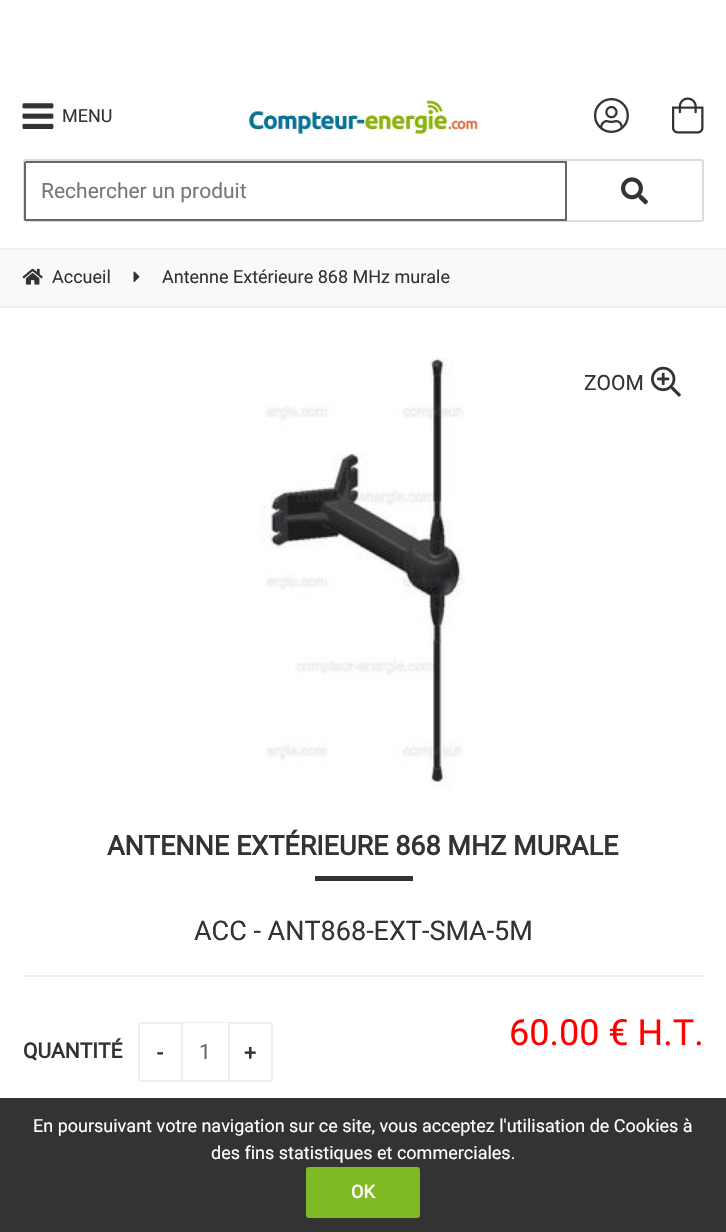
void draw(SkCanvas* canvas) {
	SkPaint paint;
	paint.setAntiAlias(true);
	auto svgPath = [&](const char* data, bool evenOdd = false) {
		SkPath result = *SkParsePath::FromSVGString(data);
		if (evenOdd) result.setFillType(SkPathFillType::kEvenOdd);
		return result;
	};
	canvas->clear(0xffffffff);
	canvas->drawImageRect(SkImages::DeferredFromEncodedData(SkData::MakeFromFileName("img1.png")), SkRect::MakeXYWH(22, 103, 32, 26), SkSamplingOptions());
	SkFont f1(fontMgr->matchFamilyStyle("Roboto", SkFontStyle::Normal()), 18);
	f1.setSubpixel(true);
	paint.setColor(0xff333333);
	canvas->drawString("MENU", 62, 122, f1, paint);
	canvas->drawImageRect(SkImages::DeferredFromEncodedData(SkData::MakeFromFileName("img2.png")), SkRect::MakeXYWH(248, 97, 231, 38), SkSamplingOptions());
	canvas->drawImageRect(SkImages::DeferredFromEncodedData(SkData::MakeFromFileName("img3.png")), SkRect::MakeXYWH(594, 98, 35, 35), SkSamplingOptions());
	canvas->drawImageRect(SkImages::DeferredFromEncodedData(SkData::MakeFromFileName("img4.png")), SkRect::MakeXYWH(672, 97, 32, 37), SkSamplingOptions());
	paint.setStroke(true);
	paint.setStrokeWidth(2);
	paint.setColor(0xffdbdbdb);
	canvas->drawRoundRect(SkRect::MakeXYWH(24, 160, 679, 61), 2, 2, paint);
	paint.setStroke(false);
	paint.setColor(0xffffffff);
	canvas->drawPath(svgPath("M25.5 161H567V221H25.5C24.5 221 24 220.5 24 219.5V162.5C24 161.5 24.5 161 25.5 161Z"), paint);
	paint.setColor(0xff666666);
	canvas->drawPath(svgPath("M26 161L24 162V220L25 221H567V161ZM26 163V219H565V163Z", true), paint);
	SkFont f2(fontMgr->matchFamilyStyle("Roboto", SkFontStyle::Normal()), 21);
	f2.setSubpixel(true);
	paint.setColor(0xff777777);
	canvas->drawString("Rechercher un produit", 41, 198, f2, paint);
	canvas->drawImageRect(SkImages::DeferredFromEncodedData(SkData::MakeFromFileName("img5.png")), SkRect::MakeXYWH(621, 177, 27, 28), SkSamplingOptions());
	paint.setColor(0xfff9f9f9);
	canvas->drawRect(SkRect::MakeXYWH(0, 250, 726, 56), paint);
	paint.setColor(0xffeeeeee);
	canvas->drawRect(SkRect::MakeXYWH(0, 248, 726, 2), paint);
	canvas->drawRect(SkRect::MakeXYWH(0, 306, 726, 2), paint);
	canvas->drawImageRect(SkImages::DeferredFromEncodedData(SkData::MakeFromFileName("img6.png")), SkRect::MakeXYWH(22, 268, 21, 17), SkSamplingOptions());
	paint.setColor(0xff333333);
	canvas->drawString("Accueil", 52, 283, f1, paint);
	canvas->drawImageRect(SkImages::DeferredFromEncodedData(SkData::MakeFromFileName("img7.png")), SkRect::MakeXYWH(133, 271, 7, 11), SkSamplingOptions());
	canvas->drawString("Antenne Extérieure 868 MHz murale", 162, 283, f1, paint);
	canvas->drawImageRect(SkImages::DeferredFromEncodedData(SkData::MakeFromFileName("img8.png")), SkRect::MakeXYWH(261, 357, 204, 432), SkSamplingOptions());
	canvas->drawString("ZOOM", 584, 390, f2, paint);
	canvas->drawImageRect(SkImages::DeferredFromEncodedData(SkData::MakeFromFileName("img9.png")), SkRect::MakeXYWH(651, 366, 30, 31), SkSamplingOptions());
	SkFont f3(fontMgr->matchFamilyStyle("Roboto", SkFontStyle::Bold()), 27);
	f3.setSubpixel(true);
	canvas->drawString("ANTENNE EXTÉRIEURE 868 MHZ MURALE", 107, 855, f3, paint);
	canvas->drawRect(SkRect::MakeXYWH(315, 876, 98, 5), paint);
	SkFont f4(fontMgr->matchFamilyStyle("Roboto", SkFontStyle::Normal()), 27);
	f4.setSubpixel(true);
	canvas->drawString("ACC - ANT868-EXT-SMA-5M", 194, 940, f4, paint);
	paint.setColor(0xffeeeeee);
	canvas->drawRect(SkRect::MakeXYWH(23, 975, 681, 2), paint);
	SkFont f5(fontMgr->matchFamilyStyle("Roboto", SkFontStyle::Normal()), 36);
	f5.setSubpixel(true);
	paint.setColor(0xffff0000);
	canvas->drawString("60.00 € H.T.", 509, 1045, f5, paint);
	SkFont f6(fontMgr->matchFamilyStyle("Roboto", SkFontStyle::Bold()), 21);
	f6.setSubpixel(true);
	paint.setColor(0xff333333);
	canvas->drawString("QUANTITÉ", 23, 1058, f6, paint);
	paint.setStroke(true);
	paint.setColor(0xffeeeeee);
	canvas->drawPath(svgPath("M141 1023H182V1081H141C140 1081 139 1080 139 1079V1025C139 1024 140 1023 141 1023Z"), paint);
	paint.setStroke(false);
	paint.setColor(0xff333333);
	canvas->drawString("-", 157, 1060, f6, paint);
	paint.setColor(0xffeeeeee);
	canvas->drawPath(svgPath("M183 1022H228L226 1023H184ZM228 1082H183L184 1080H226Z"), paint);
	paint.setColor(0xff666666);
	canvas->drawString("1", 199, 1059, f2, paint);
	paint.setStroke(true);
	paint.setColor(0xffeeeeee);
	canvas->drawPath(svgPath("M229 1023H270C271 1023 272 1024 272 1025V1079C272 1080 271 1081 270 1081H229Z"), paint);
	paint.setStroke(false);
	paint.setColor(0xff333333);
	canvas->drawString("+", 244, 1060, f6, paint);
	canvas->drawRect(SkRect::MakeXYWH(0, 1098, 726, 134), paint);
	paint.setColor(0xffffffff);
	canvas->drawString("En poursuivant votre navigation sur ce site, vous acceptez l'utilisation de Cookies à", 33, 1132, f1, paint);
	canvas->drawString("des fins statistiques et commerciales.", 211, 1159, f1, paint);
	paint.setColor(0xff7fb923);
	canvas->drawRoundRect(SkRect::MakeXYWH(306, 1167, 114, 51), 3, 3, paint);
	SkFont f7(fontMgr->matchFamilyStyle("Roboto", SkFontStyle::Bold()), 18);
	f7.setSubpixel(true);
	paint.setColor(0xffffffff);
	canvas->drawString("OK", 351, 1198, f7, paint);
}
